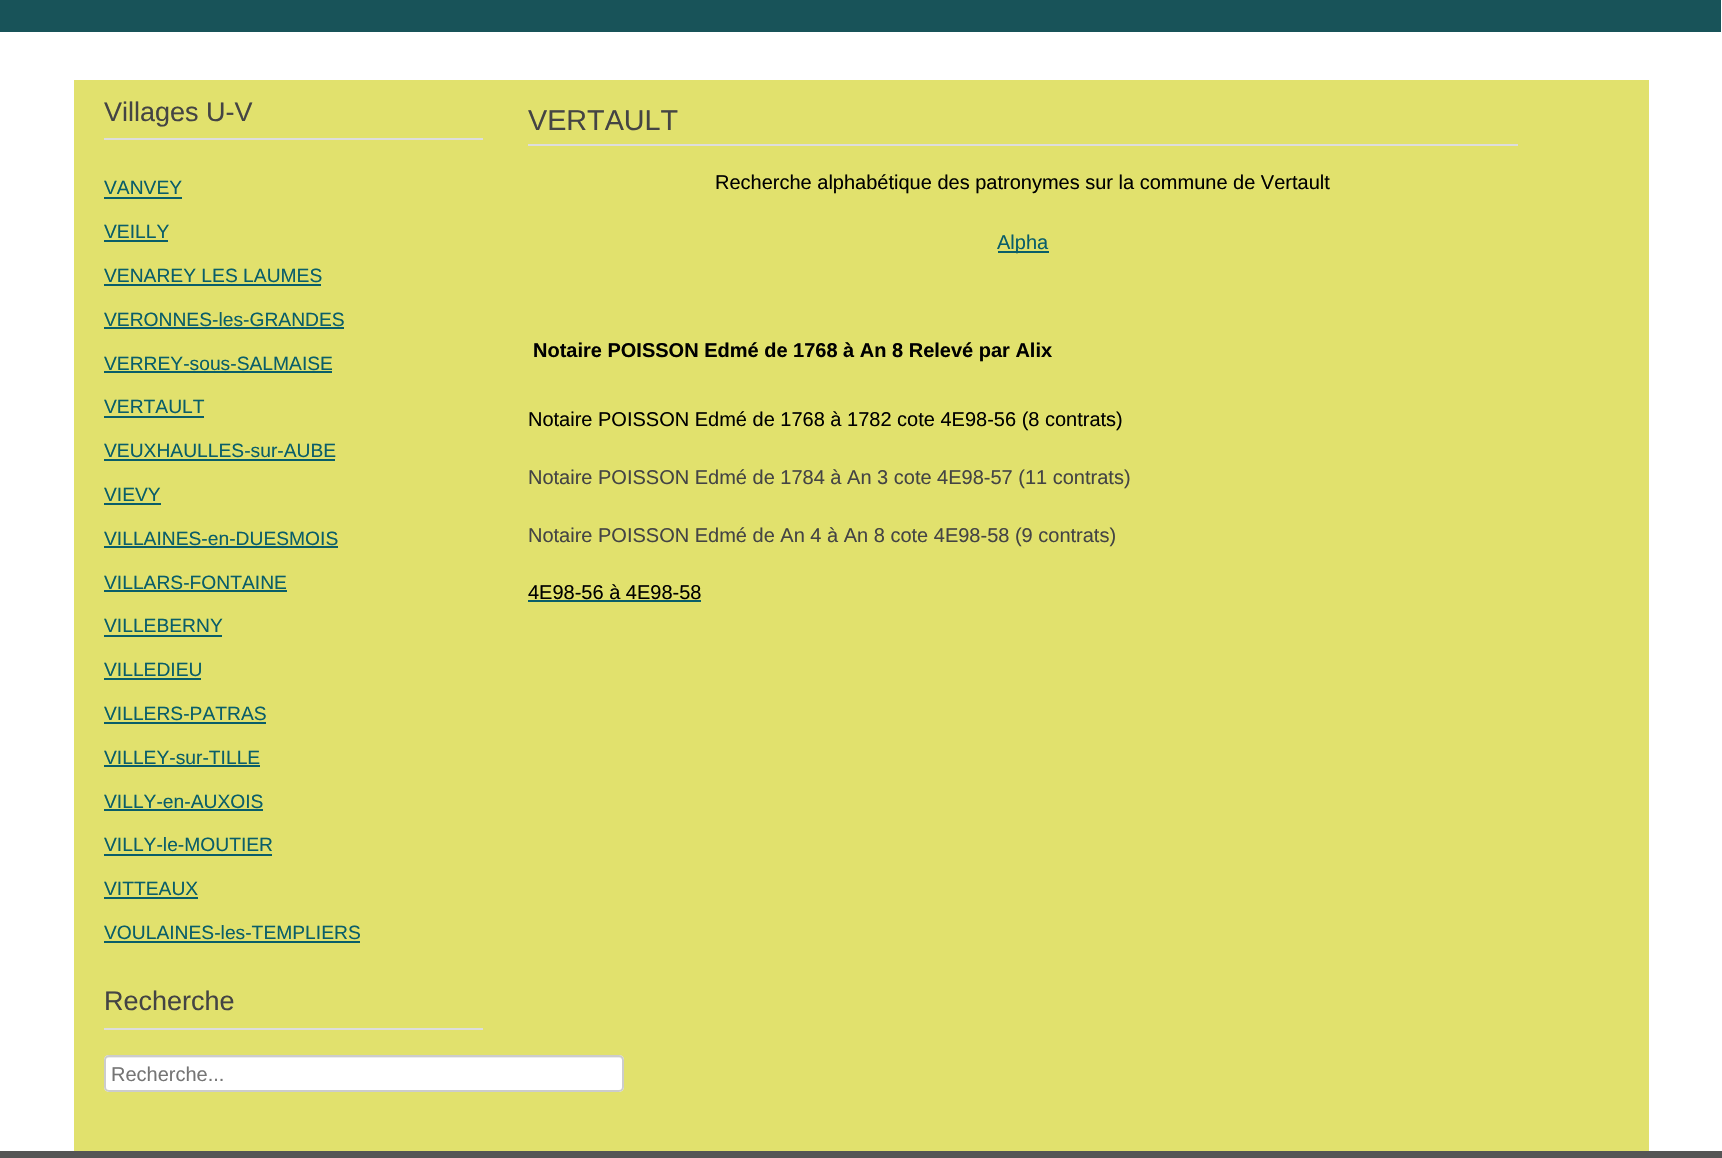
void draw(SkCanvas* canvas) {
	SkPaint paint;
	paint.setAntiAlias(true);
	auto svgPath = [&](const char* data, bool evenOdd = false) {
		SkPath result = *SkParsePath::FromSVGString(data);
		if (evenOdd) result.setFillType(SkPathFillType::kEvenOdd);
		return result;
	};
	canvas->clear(0xffffffff);
	{
		const SkColor colors[] = {0xff004746, 0xff0a5e69, 0xff185359};
		const float stops[] = {0, 0.25, 0.25};
		const SkPoint ends[] = {{860, -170}, {860, 32}};
		paint.setShader(SkGradientShader::MakeLinear(ends, colors, stops, 3, SkTileMode::kClamp));
		paint.setAlpha(255);
	}
	canvas->drawRect(SkRect::MakeXYWH(0, 0, 1721, 32), paint);
	paint.setShader(nullptr);
	paint.setColor(0xffe1e16d);
	canvas->drawRect(SkRect::MakeXYWH(74, 80, 1575, 1071), paint);
	paint.setColor(0xffdddddd);
	canvas->drawRect(SkRect::MakeXYWH(104, 138, 379, 2), paint);
	SkFont f1(fontMgr->matchFamilyStyle("Liberation Sans", SkFontStyle::Normal()), 27);
	f1.setSubpixel(true);
	paint.setColor(0xff444444);
	canvas->drawString("Villages U-V", 104, 121, f1, paint);
	SkFont f2(fontMgr->matchFamilyStyle("Liberation Sans", SkFontStyle::Normal()), 19.25);
	f2.setSubpixel(true);
	paint.setColor(0xff0a5e69);
	canvas->drawString("VANVEY", 104, 194, f2, paint);
	canvas->drawRect(SkRect::MakeXYWH(104, 197, 78, 2), paint);
	canvas->drawString("VEILLY", 104, 238, f2, paint);
	canvas->drawRect(SkRect::MakeXYWH(104, 240, 64, 2), paint);
	canvas->drawString("VENAREY LES LAUMES", 104, 282, f2, paint);
	canvas->drawRect(SkRect::MakeXYWH(104, 284, 217, 2), paint);
	canvas->drawString("VERONNES-les-GRANDES", 104, 326, f2, paint);
	canvas->drawRect(SkRect::MakeXYWH(104, 327, 240, 2), paint);
	canvas->drawString("VERREY-sous-SALMAISE", 104, 370, f2, paint);
	canvas->drawRect(SkRect::MakeXYWH(104, 371, 228, 2), paint);
	canvas->drawString("VERTAULT", 104, 413, f2, paint);
	canvas->drawRect(SkRect::MakeXYWH(104, 416, 100, 2), paint);
	canvas->drawString("VEUXHAULLES-sur-AUBE", 104, 457, f2, paint);
	canvas->drawRect(SkRect::MakeXYWH(104, 459, 231, 2), paint);
	canvas->drawString("VIEVY", 104, 501, f2, paint);
	canvas->drawRect(SkRect::MakeXYWH(104, 503, 57, 2), paint);
	canvas->drawString("VILLAINES-en-DUESMOIS", 104, 545, f2, paint);
	canvas->drawRect(SkRect::MakeXYWH(104, 546, 234, 2), paint);
	canvas->drawString("VILLARS-FONTAINE", 104, 589, f2, paint);
	canvas->drawRect(SkRect::MakeXYWH(104, 590, 183, 2), paint);
	canvas->drawString("VILLEBERNY", 104, 632, f2, paint);
	canvas->drawRect(SkRect::MakeXYWH(104, 635, 118, 2), paint);
	canvas->drawString("VILLEDIEU", 104, 676, f2, paint);
	canvas->drawRect(SkRect::MakeXYWH(104, 678, 97, 2), paint);
	canvas->drawString("VILLERS-PATRAS", 104, 720, f2, paint);
	canvas->drawRect(SkRect::MakeXYWH(104, 722, 162, 2), paint);
	canvas->drawString("VILLEY-sur-TILLE", 104, 764, f2, paint);
	canvas->drawRect(SkRect::MakeXYWH(104, 765, 156, 2), paint);
	canvas->drawString("VILLY-en-AUXOIS", 104, 808, f2, paint);
	canvas->drawRect(SkRect::MakeXYWH(104, 809, 159, 2), paint);
	canvas->drawString("VILLY-le-MOUTIER", 104, 851, f2, paint);
	canvas->drawRect(SkRect::MakeXYWH(104, 854, 168, 2), paint);
	canvas->drawString("VITTEAUX", 104, 895, f2, paint);
	canvas->drawRect(SkRect::MakeXYWH(104, 897, 94, 2), paint);
	canvas->drawString("VOULAINES-les-TEMPLIERS", 104, 939, f2, paint);
	canvas->drawRect(SkRect::MakeXYWH(104, 941, 256, 2), paint);
	paint.setColor(0xffdddddd);
	canvas->drawRect(SkRect::MakeXYWH(104, 1028, 379, 2), paint);
	paint.setColor(0xff444444);
	canvas->drawString("Recherche", 104, 1010, f1, paint);
	paint.setColor(0xffffffff);
	canvas->drawRoundRect(SkRect::MakeXYWH(104, 1055, 520, 37), 5, 5, paint);
	paint.setColor(0xffececec);
	canvas->drawPath(svgPath("M108 1058H620C621 1058 622 1059 622 1060V1090C623 1090 623 1089 623 1088V1059C623 1057 622 1056 620 1056H108C106 1056 105 1057 105 1059V1060C105 1059 106 1058 108 1058Z"), paint);
	paint.setStroke(true);
	paint.setStrokeWidth(2);
	paint.setColor(0xffcccccc);
	canvas->drawRoundRect(SkRect::MakeXYWH(105, 1056, 518, 35), 4, 4, paint);
	SkFont f3(fontMgr->matchFamilyStyle("Liberation Sans", SkFontStyle::Normal()), 20);
	f3.setSubpixel(true);
	paint.setStroke(false);
	paint.setColor(0xff757575);
	canvas->drawString("Recherche...", 111, 1081, f3, paint);
	paint.setColor(0xffdddddd);
	canvas->drawRect(SkRect::MakeXYWH(528, 144, 990, 2), paint);
	SkFont f4(fontMgr->matchFamilyStyle("Liberation Sans", SkFontStyle::Normal()), 28.75);
	f4.setSubpixel(true);
	paint.setColor(0xff444444);
	canvas->drawString("VERTAULT", 528, 130, f4, paint);
	paint.setColor(0xff000000);
	canvas->drawString("Recherche alphabétique des patronymes sur la commune de Vertault", 715, 189, f3, paint);
	paint.setColor(0xff0a5e69);
	canvas->drawRect(SkRect::MakeXYWH(998, 251, 51, 2), paint);
	canvas->drawString("Alpha", 997, 249, f3, paint);
	SkFont f5(fontMgr->matchFamilyStyle("Liberation Sans", SkFontStyle::Bold()), 20);
	f5.setSubpixel(true);
	paint.setColor(0xff000000);
	canvas->drawString("Notaire POISSON Edmé de 1768 à An 8 Relevé par Alix", 533, 357, f5, paint);
	canvas->drawString("Notaire POISSON Edmé de 1768 à 1782 cote 4E98-56 (8 contrats)", 528, 426, f3, paint);
	paint.setColor(0xff444444);
	canvas->drawString("Notaire POISSON Edmé de 1784 à An 3 cote 4E98-57 (11 contrats)", 528, 484, f3, paint);
	canvas->drawString("Notaire POISSON Edmé de An 4 à An 8 cote 4E98-58 (9 contrats)", 528, 542, f3, paint);
	paint.setColor(0xff000000);
	canvas->drawString("4E98-56 à 4E98-58", 528, 599, f3, paint);
	paint.setColor(0xff0a5e69);
	canvas->drawRect(SkRect::MakeXYWH(528, 600, 173, 2), paint);
	paint.setColor(0xff555555);
	canvas->drawRect(SkRect::MakeXYWH(0, 1151, 1722, 7), paint);
}
